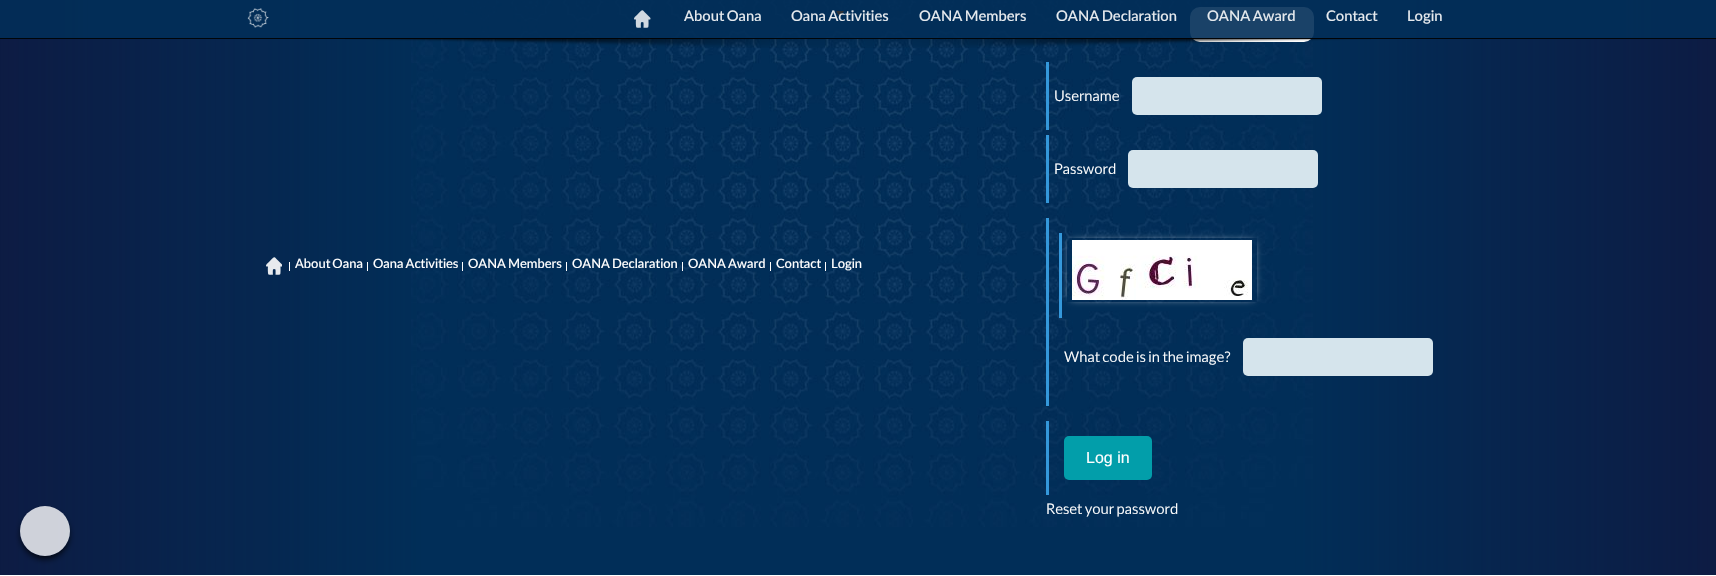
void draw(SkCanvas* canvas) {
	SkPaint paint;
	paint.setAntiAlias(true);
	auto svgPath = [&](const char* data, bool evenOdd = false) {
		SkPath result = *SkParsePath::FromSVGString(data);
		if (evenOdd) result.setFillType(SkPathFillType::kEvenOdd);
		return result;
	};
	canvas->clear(0xffffffff);
	paint.setColor(0xff012e58);
	canvas->drawRect(SkRect::MakeXYWH(3, 0, 1710, 575), paint);
	canvas->drawImageRect(SkImages::DeferredFromEncodedData(SkData::MakeFromFileName("img4.png")), SkRect::MakeXYWH(411, 0, 902, 527), SkSamplingOptions());
	{
		const SkColor colors[] = {0xff0c1b43, 0x000c1b43, 0x000c1b43, 0xff0c1b43};
		const float stops[] = {0, 0.25, 0.75, 1};
		const SkPoint ends[] = {{0, 183}, {1716, 183}};
		paint.setShader(SkGradientShader::MakeLinear(ends, colors, stops, 4, SkTileMode::kClamp));
		paint.setAlpha(255);
	}
	canvas->drawRect(SkRect::MakeXYWH(0, 0, 1716, 575), paint);
	paint.setShader(nullptr);
	paint.setColor(0xffffffff);
	canvas->drawRoundRect(SkRect::MakeXYWH(1190, 7, 124, 35), 10, 10, paint);
	paint.setColor(0xe6012e58);
	canvas->drawRect(SkRect::MakeXYWH(0, 0, 1716, 39), paint);
	paint.setColor(0xe6000000);
	canvas->drawRect(SkRect::MakeXYWH(0, 38, 1716, 1), paint);
	canvas->drawImageRect(SkImages::DeferredFromEncodedData(SkData::MakeFromFileName("img1.png")), SkRect::MakeXYWH(247, 8, 22, 20), SkSamplingOptions());
	canvas->drawImageRect(SkImages::DeferredFromEncodedData(SkData::MakeFromFileName("img2.png")), SkRect::MakeXYWH(634, 10, 17, 18), SkSamplingOptions());
	SkFont f1(fontMgr->matchFamilyStyle("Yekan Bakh", SkFontStyle(500, SkFontStyle::kNormal_Width, SkFontStyle::kUpright_Slant)), 16);
	f1.setSubpixel(true);
	paint.setColor(0xffe6eaee);
	canvas->drawString("About Oana", 684, 21, f1, paint);
	paint.setColor(0xff2e3237);
	canvas->drawPath(svgPath("M840 17L836 11H844Z"), paint);
	paint.setColor(0xffe6eaee);
	canvas->drawString("Oana Activities", 791, 21, f1, paint);
	canvas->drawString("OANA Members", 919, 21, f1, paint);
	canvas->drawString("OANA Declaration", 1056, 21, f1, paint);
	canvas->drawString("OANA Award", 1207, 21, f1, paint);
	canvas->drawString("Contact", 1326, 21, f1, paint);
	canvas->drawString("Login", 1407, 21, f1, paint);
	canvas->drawImageRect(SkImages::DeferredFromEncodedData(SkData::MakeFromFileName("img3.png")), SkRect::MakeXYWH(345, 38, 1026, 10), SkSamplingOptions());
	canvas->drawImageRect(SkImages::DeferredFromEncodedData(SkData::MakeFromFileName("img5.png")), SkRect::MakeXYWH(266, 257, 16, 18), SkSamplingOptions());
	paint.setColor(0xffffffff);
	canvas->drawRect(SkRect::MakeXYWH(289, 262, 1, 9), paint);
	SkFont f2(fontMgr->matchFamilyStyle("Yekan Bakh", SkFontStyle(500, SkFontStyle::kNormal_Width, SkFontStyle::kUpright_Slant)), 14);
	f2.setSubpixel(true);
	canvas->drawString("About Oana", 295, 268, f2, paint);
	canvas->drawRect(SkRect::MakeXYWH(367, 262, 1, 9), paint);
	canvas->drawString("Oana Activities", 373, 268, f2, paint);
	canvas->drawRect(SkRect::MakeXYWH(462, 262, 1, 9), paint);
	canvas->drawString("OANA Members", 468, 268, f2, paint);
	canvas->drawRect(SkRect::MakeXYWH(566, 262, 1, 9), paint);
	canvas->drawString("OANA Declaration", 572, 268, f2, paint);
	canvas->drawRect(SkRect::MakeXYWH(682, 262, 1, 9), paint);
	canvas->drawString("OANA Award", 688, 268, f2, paint);
	canvas->drawRect(SkRect::MakeXYWH(770, 262, 1, 9), paint);
	canvas->drawString("Contact", 776, 268, f2, paint);
	canvas->drawRect(SkRect::MakeXYWH(825, 262, 1, 9), paint);
	canvas->drawString("Login", 831, 268, f2, paint);
	paint.setColor(0xff3498db);
	canvas->drawRect(SkRect::MakeXYWH(1046, 62, 3, 68), paint);
	SkFont f3(fontMgr->matchFamilyStyle("Yekan Bakh", SkFontStyle::Normal()), 16);
	f3.setSubpixel(true);
	paint.setColor(0xffffffff);
	canvas->drawString("Username", 1054, 101, f3, paint);
	paint.setColor(0xffd5e4ec);
	canvas->drawRoundRect(SkRect::MakeXYWH(1132, 77, 190, 38), 5, 5, paint);
	paint.setColor(0xff3498db);
	canvas->drawRect(SkRect::MakeXYWH(1046, 135, 3, 68), paint);
	paint.setColor(0xffffffff);
	canvas->drawString("Password", 1054, 174, f3, paint);
	paint.setColor(0xffd5e4ec);
	canvas->drawRoundRect(SkRect::MakeXYWH(1128, 150, 190, 38), 5, 5, paint);
	paint.setColor(0xff3498db);
	canvas->drawRect(SkRect::MakeXYWH(1046, 218, 3, 188), paint);
	canvas->drawRect(SkRect::MakeXYWH(1059, 233, 3, 85), paint);
	canvas->save();
	canvas->clipPath(svgPath("M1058 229H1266V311H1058ZM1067 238H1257V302H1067Z", true), true);
	paint.setColor(0xffffffff);
	paint.setMaskFilter(SkMaskFilter::MakeBlur(kNormal_SkBlurStyle, 4));
	canvas->drawRect(SkRect::MakeXYWH(1071, 242, 182, 56), paint);
	paint.setMaskFilter(nullptr);
	canvas->restore();
	canvas->drawImageRect(SkImages::DeferredFromEncodedData(SkData::MakeFromFileName("img6.png")), SkRect::MakeXYWH(1072, 240, 180, 60), SkSamplingOptions());
	canvas->drawString("What code is in the image?", 1064, 362, f3, paint);
	paint.setColor(0xffd5e4ec);
	canvas->drawRoundRect(SkRect::MakeXYWH(1243, 338, 190, 38), 5, 5, paint);
	paint.setColor(0xff3498db);
	canvas->drawRect(SkRect::MakeXYWH(1046, 421, 3, 74), paint);
	paint.setColor(0xff029eaa);
	canvas->drawRoundRect(SkRect::MakeXYWH(1064, 436, 88, 44), 5, 5, paint);
	SkFont f4(fontMgr->matchFamilyStyle("Liberation Sans", SkFontStyle::Normal()), 16);
	f4.setSubpixel(true);
	paint.setColor(0xffffffff);
	canvas->drawString("Log in", 1086, 463, f4, paint);
	canvas->drawString("Reset your password", 1046, 514, f3, paint);
	canvas->save();
	canvas->clipPath(svgPath("M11 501H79V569H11ZM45 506C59 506 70 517 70 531C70 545 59 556 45 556C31 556 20 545 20 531C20 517 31 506 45 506Z", true), true);
	paint.setColor(0xcc000000);
	paint.setMaskFilter(SkMaskFilter::MakeBlur(kNormal_SkBlurStyle, 3));
	canvas->drawRoundRect(SkRect::MakeXYWH(21, 511, 48, 48), 24, 24, paint);
	paint.setMaskFilter(nullptr);
	canvas->restore();
	paint.setColor(0xccffffff);
	canvas->drawCircle(45, 531, 25, paint);
}
